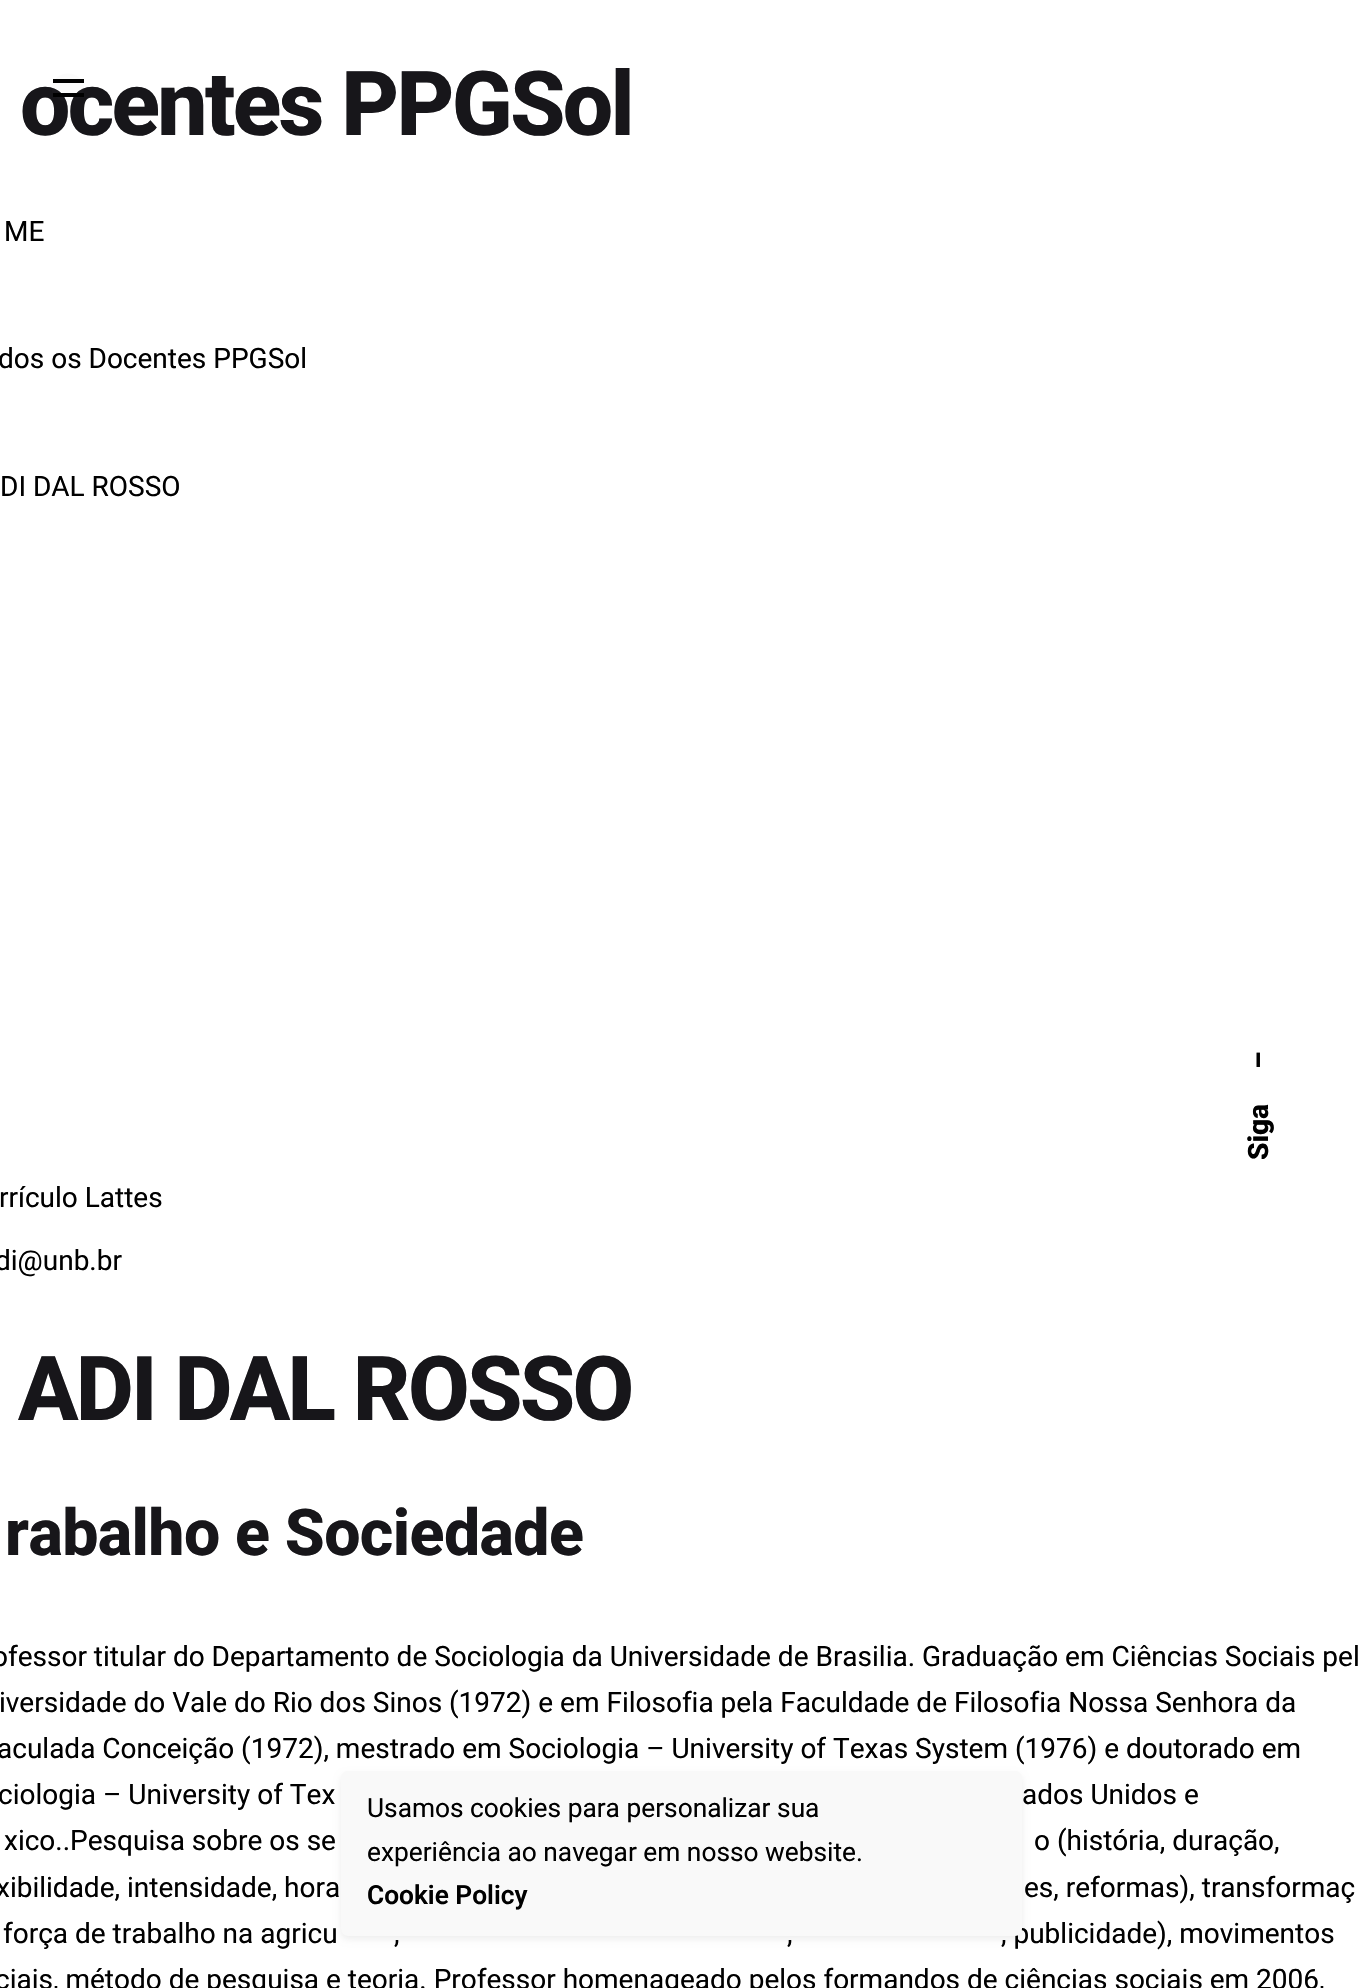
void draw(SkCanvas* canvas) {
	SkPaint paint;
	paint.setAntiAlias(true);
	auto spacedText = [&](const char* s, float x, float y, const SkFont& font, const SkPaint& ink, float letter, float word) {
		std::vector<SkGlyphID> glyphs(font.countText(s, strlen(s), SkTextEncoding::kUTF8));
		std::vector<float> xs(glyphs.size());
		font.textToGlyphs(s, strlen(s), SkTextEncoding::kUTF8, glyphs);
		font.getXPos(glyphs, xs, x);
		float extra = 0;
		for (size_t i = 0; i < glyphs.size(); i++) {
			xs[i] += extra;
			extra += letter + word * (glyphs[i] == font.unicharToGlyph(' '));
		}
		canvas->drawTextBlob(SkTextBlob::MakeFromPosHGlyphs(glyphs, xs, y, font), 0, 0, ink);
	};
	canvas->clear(0xffffffff);
	SkFont f1(fontMgr->matchFamilyStyle("Roboto", SkFontStyle(800, SkFontStyle::kNormal_Width, SkFontStyle::kUpright_Slant)), 89.5);
	f1.setSubpixel(true);
	paint.setColor(0xff17161a);
	spacedText("ocentes PPGSol", 20, 135, f1, paint, -2.75, 0);
	SkFont f2(fontMgr->matchFamilyStyle("Roboto", SkFontStyle::Normal()), 28);
	f2.setSubpixel(true);
	paint.setColor(0xff000000);
	canvas->drawString("ME", 4, 241, f2, paint);
	canvas->drawString("dos os Docentes PPGSol", -2, 368, f2, paint);
	canvas->drawString("DI DAL ROSSO", 0, 496, f2, paint);
	canvas->drawString("rrículo Lattes", -1, 1207, f2, paint);
	canvas->drawString("di@unb.br", -5, 1270, f2, paint);
	paint.setColor(0xff17161a);
	spacedText("ADI DAL ROSSO", 18, 1420, f1, paint, -2.75, 0);
	SkFont f3(fontMgr->matchFamilyStyle("Roboto", SkFontStyle(800, SkFontStyle::kNormal_Width, SkFontStyle::kUpright_Slant)), 64.4);
	f3.setSubpixel(true);
	spacedText("rabalho e Sociedade", 5, 1555, f3, paint, -0.6, 0);
	paint.setColor(0xff000000);
	canvas->drawString("ofessor titular do Departamento de Sociologia da Universidade de Brasilia. Graduação em Ciências Sociais pel", -8, 1666, f2, paint);
	canvas->drawString("iversidade do Vale do Rio dos Sinos (1972) e em Filosofia pela Faculdade de Filosofia Nossa Senhora da", -1, 1712, f2, paint);
	canvas->drawString("aculada Conceição (1972), mestrado em Sociologia – University of Texas System (1976) e doutorado em", -3, 1758, f2, paint);
	canvas->drawString("ciologia – University of Tex", -2, 1804, f2, paint);
	canvas->drawString("ados Unidos e", 1022, 1804, f2, paint);
	canvas->drawString("xico..Pesquisa sobre os se", 4, 1850, f2, paint);
	canvas->drawString("o (história, duração,", 1034, 1850, f2, paint);
	canvas->drawString("xibilidade, intensidade, hora", -4, 1897, f2, paint);
	canvas->drawString("es, reformas), transformaç", 1024, 1897, f2, paint);
	canvas->drawString("força de trabalho na agricu", 3, 1943, f2, paint);
	canvas->drawString(",", 394, 1943, f2, paint);
	canvas->drawString(",", 787, 1943, f2, paint);
	canvas->drawString(", publicidade), movimentos", 1001, 1943, f2, paint);
	canvas->drawString("ciais, método de pesquisa e teoria. Professor homenageado pelos formandos de ciências sociais em 2006,", -5, 1989, f2, paint);
	paint.setColor(0x08888888);
	canvas->drawOval(SkRect::MakeXYWH(52, 73.5, 32, 28), paint);
	paint.setColor(0xff000000);
	canvas->drawRect(SkRect::MakeXYWH(53, 79, 31, 4), paint);
	canvas->drawRect(SkRect::MakeXYWH(53, 93, 31, 4), paint);
	SkFont f4(fontMgr->matchFamilyStyle("Roboto", SkFontStyle(800, SkFontStyle::kNormal_Width, SkFontStyle::kUpright_Slant)), 28);
	f4.setSubpixel(true);
	canvas->save();
	canvas->rotate(-90, 1268, 1069);
	canvas->drawString("–", 1268, 1069, f4, paint);
	canvas->restore();
	canvas->save();
	canvas->rotate(-90, 1268, 1160);
	canvas->drawString("Siga", 1268, 1160, f4, paint);
	canvas->restore();
	paint.setColor(0x12000000);
	paint.setMaskFilter(SkMaskFilter::MakeBlur(kNormal_SkBlurStyle, 3.5));
	canvas->drawRoundRect(SkRect::MakeXYWH(341, 1775, 681, 164), 7, 7, paint);
	paint.setMaskFilter(nullptr);
	paint.setColor(0xfff9f9f9);
	canvas->drawRoundRect(SkRect::MakeXYWH(341, 1771, 681, 165), 7, 7, paint);
	SkFont f5(fontMgr->matchFamilyStyle("Roboto", SkFontStyle::Normal()), 26.3);
	f5.setSubpixel(true);
	paint.setColor(0xff000000);
	canvas->drawString("Usamos cookies para personalizar sua", 367, 1817, f5, paint);
	canvas->drawString("experiência ao navegar em nosso website.", 367, 1861, f5, paint);
	SkFont f6(fontMgr->matchFamilyStyle("Roboto", SkFontStyle(600, SkFontStyle::kNormal_Width, SkFontStyle::kUpright_Slant)), 26.3);
	f6.setSubpixel(true);
	canvas->drawString("Cookie Policy", 367, 1904, f6, paint);
}
